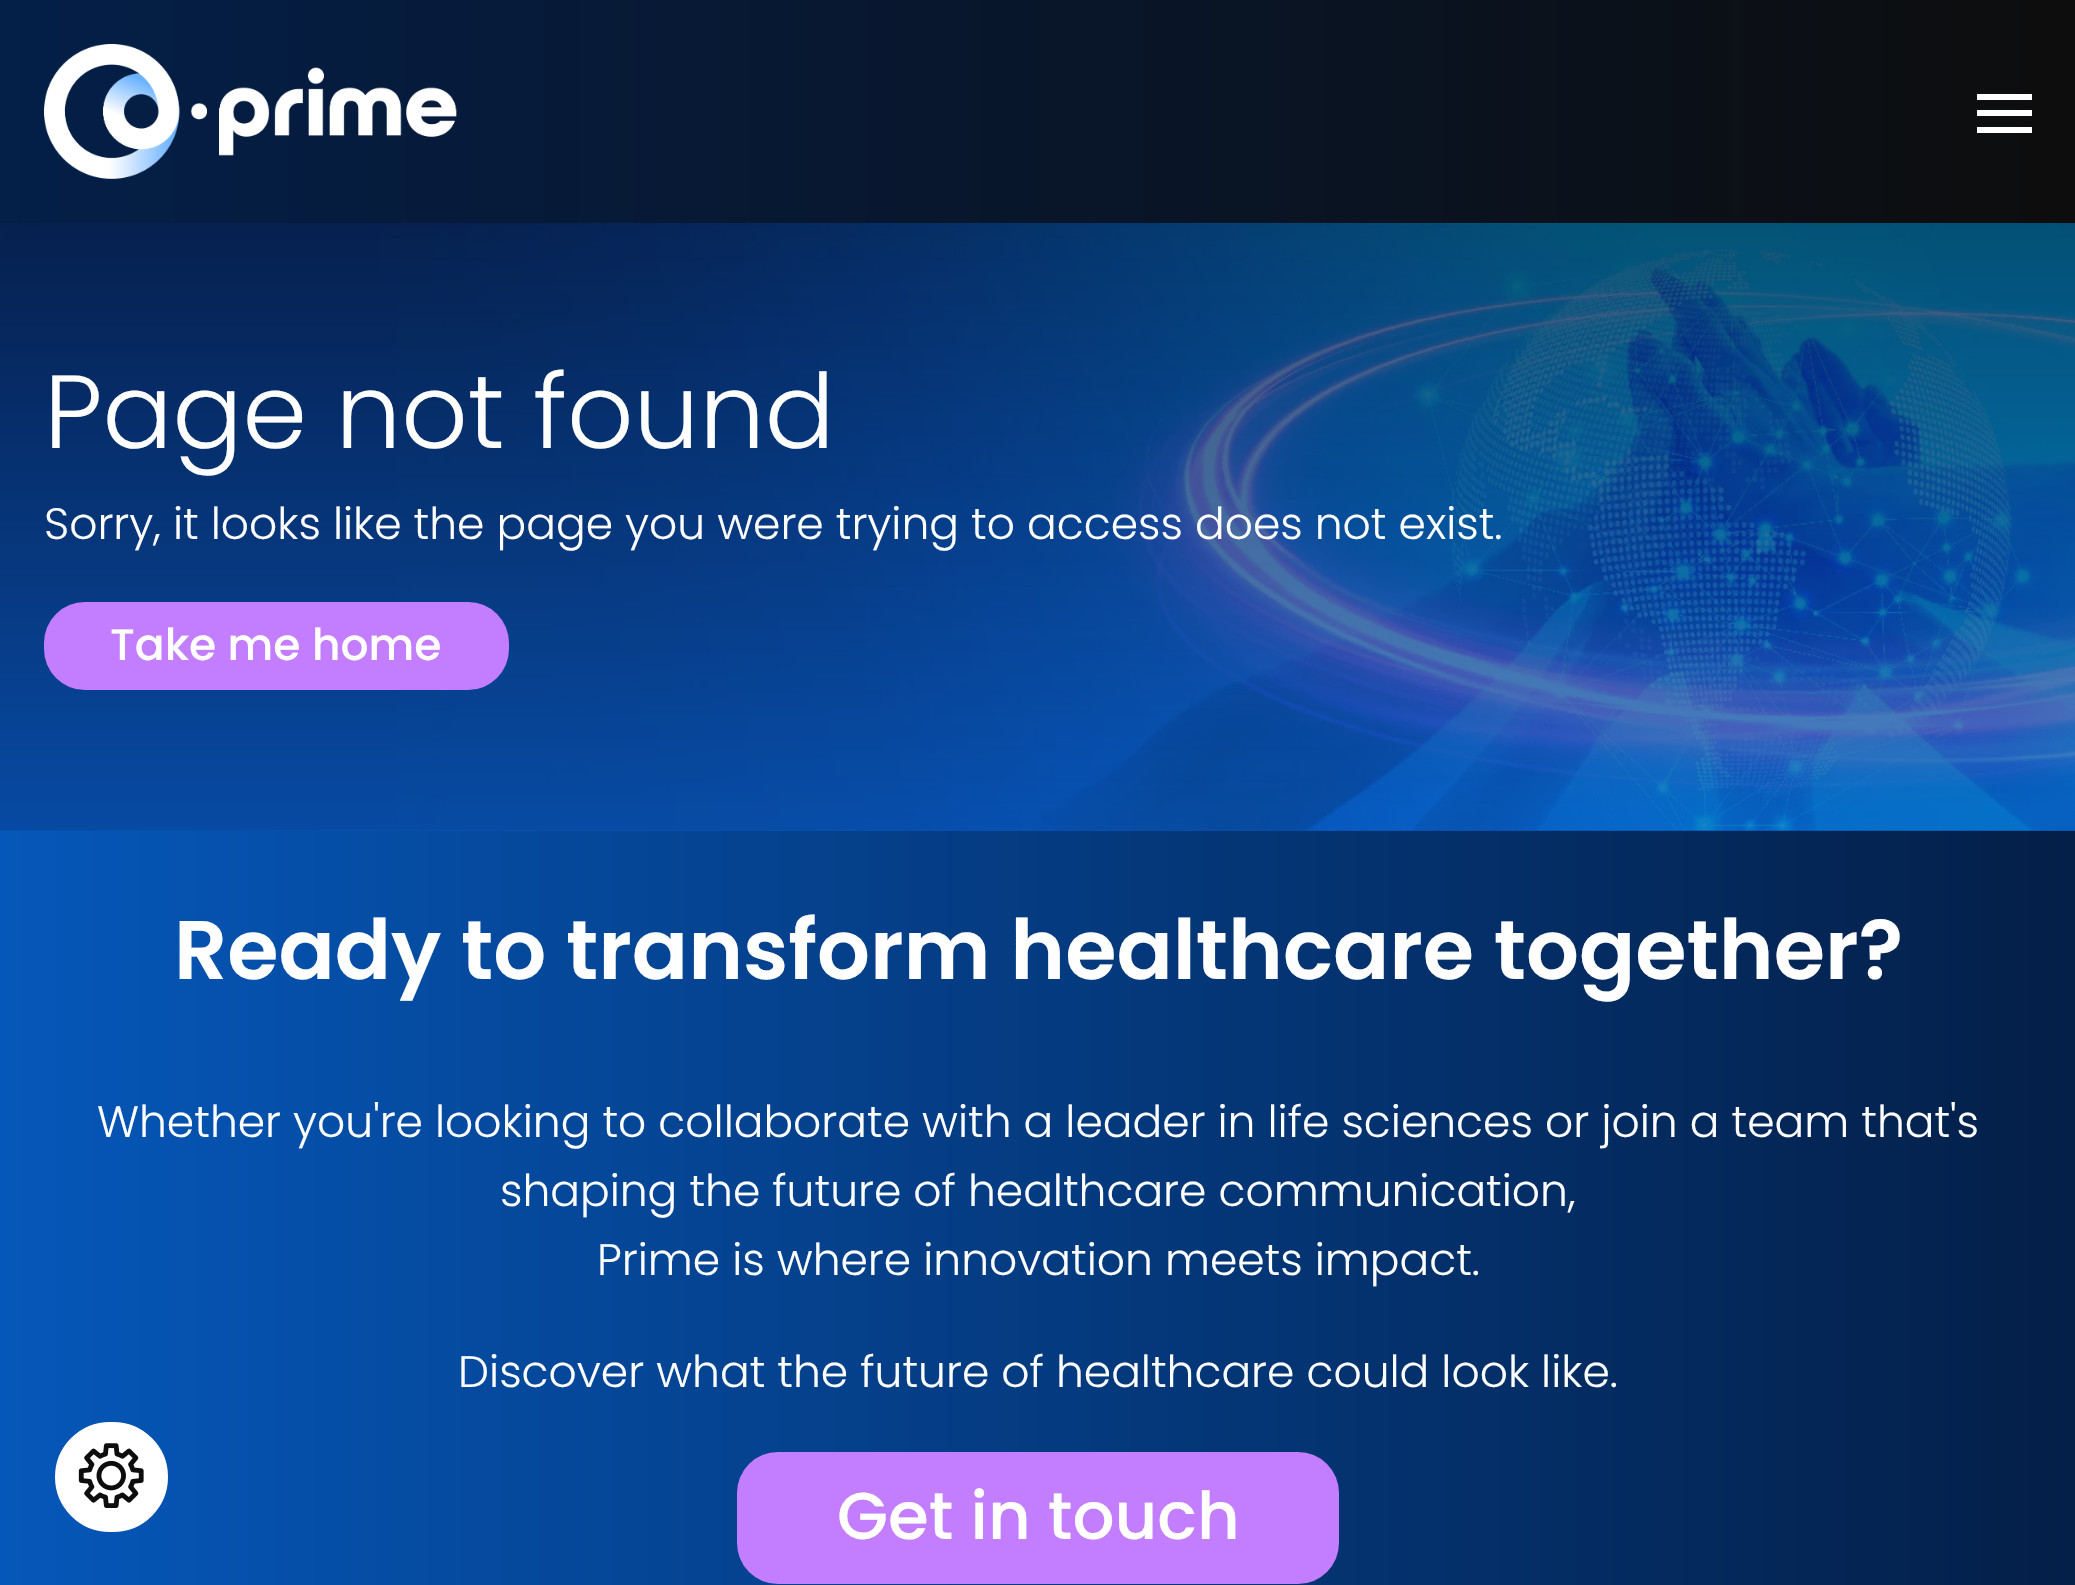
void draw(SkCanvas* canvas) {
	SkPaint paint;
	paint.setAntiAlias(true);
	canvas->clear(0xffffffff);
	{
		const SkColor colors[] = {0xff0557b9, 0xff041f48};
		const float stops[] = {0, 1};
		const SkPoint ends[] = {{0, 1334}, {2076, 1334}};
		paint.setShader(SkGradientShader::MakeLinear(ends, colors, stops, 2, SkTileMode::kClamp));
		paint.setAlpha(255);
	}
	canvas->drawRect(SkRect::MakeXYWH(0, 830, 2075, 755), paint);
	{
		const SkColor colors[] = {0xff041f48, 0xff0d0d0d};
		const float stops[] = {0, 1};
		const SkPoint ends[] = {{0, 111}, {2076, 111}};
		paint.setShader(SkGradientShader::MakeLinear(ends, colors, stops, 2, SkTileMode::kClamp));
		paint.setAlpha(255);
	}
	canvas->drawRect(SkRect::MakeXYWH(0, 0, 2075, 223), paint);
	canvas->drawImageRect(SkImages::DeferredFromEncodedData(SkData::MakeFromFileName("img1.png")), SkRect::MakeXYWH(44, 44, 413, 135), SkSamplingOptions());
	paint.setShader(nullptr);
	paint.setColor(0xffffffff);
	canvas->drawRect(SkRect::MakeXYWH(1977, 94, 55, 6), paint);
	canvas->drawRect(SkRect::MakeXYWH(1977, 110, 55, 6), paint);
	canvas->drawRect(SkRect::MakeXYWH(1977, 127, 55, 6), paint);
	canvas->drawImageRect(SkImages::DeferredFromEncodedData(SkData::MakeFromFileName("img2.png")), SkRect::MakeXYWH(0, 223, 2075, 608), SkSamplingOptions());
	{
		const SkColor colors[] = {0xbf0557b9, 0xbf041f48};
		const float stops[] = {0, 1};
		const SkPoint ends[] = {{1038, 831}, {1038, 223}};
		paint.setShader(SkGradientShader::MakeLinear(ends, colors, stops, 2, SkTileMode::kClamp));
		paint.setAlpha(255);
	}
	canvas->drawRect(SkRect::MakeXYWH(0, 223, 2075, 608), paint);
	SkFont f1(fontMgr->matchFamilyStyle("Poppins", SkFontStyle(300, SkFontStyle::kNormal_Width, SkFontStyle::kUpright_Slant)), 103.75);
	f1.setSubpixel(true);
	paint.setShader(nullptr);
	paint.setColor(0xffffffff);
	canvas->drawString("Page not found", 44, 448, f1, paint);
	SkFont f2(fontMgr->matchFamilyStyle("Poppins", SkFontStyle(300, SkFontStyle::kNormal_Width, SkFontStyle::kUpright_Slant)), 44);
	f2.setSubpixel(true);
	canvas->drawString("Sorry, it looks like the page you were trying to access does not exist.", 44, 539, f2, paint);
	paint.setColor(0xffc37dff);
	canvas->drawRoundRect(SkRect::MakeXYWH(44, 602, 465, 88), 41, 41, paint);
	SkFont f3(fontMgr->matchFamilyStyle("Poppins", SkFontStyle(500, SkFontStyle::kNormal_Width, SkFontStyle::kUpright_Slant)), 44);
	f3.setSubpixel(true);
	paint.setColor(0xffffffff);
	canvas->drawString("Take me home", 110, 660, f3, paint);
	SkFont f4(fontMgr->matchFamilyStyle("Poppins", SkFontStyle(600, SkFontStyle::kNormal_Width, SkFontStyle::kUpright_Slant)), 83.05);
	f4.setSubpixel(true);
	canvas->drawString("Ready to transform healthcare together?", 174, 979, f4, paint);
	canvas->drawString("Whether you're looking to collaborate with a leader in life sciences or join a team that's", 97, 1137, f2, paint);
	canvas->drawString("shaping the future of healthcare communication,", 500, 1206, f2, paint);
	canvas->drawString("Prime is where innovation meets impact.", 597, 1275, f2, paint);
	canvas->drawString("Discover what the future of healthcare could look like.", 458, 1387, f2, paint);
	paint.setColor(0xffc37dff);
	canvas->drawRoundRect(SkRect::MakeXYWH(737, 1452, 602, 132), 41, 41, paint);
	SkFont f5(fontMgr->matchFamilyStyle("Poppins", SkFontStyle(500, SkFontStyle::kNormal_Width, SkFontStyle::kUpright_Slant)), 66);
	f5.setSubpixel(true);
	paint.setColor(0xffffffff);
	canvas->drawString("Get in touch", 837, 1539, f5, paint);
	canvas->drawRoundRect(SkRect::MakeXYWH(56.5, 1423.5, 110, 107), 53.5, 53.5, paint);
	paint.setStroke(true);
	paint.setStrokeWidth(3);
	canvas->drawRoundRect(SkRect::MakeXYWH(56.5, 1423.5, 110, 107), 53.5, 53.5, paint);
	canvas->drawImageRect(SkImages::DeferredFromEncodedData(SkData::MakeFromFileName("img3.png")), SkRect::MakeXYWH(78, 1443, 66, 65), SkSamplingOptions());
}
